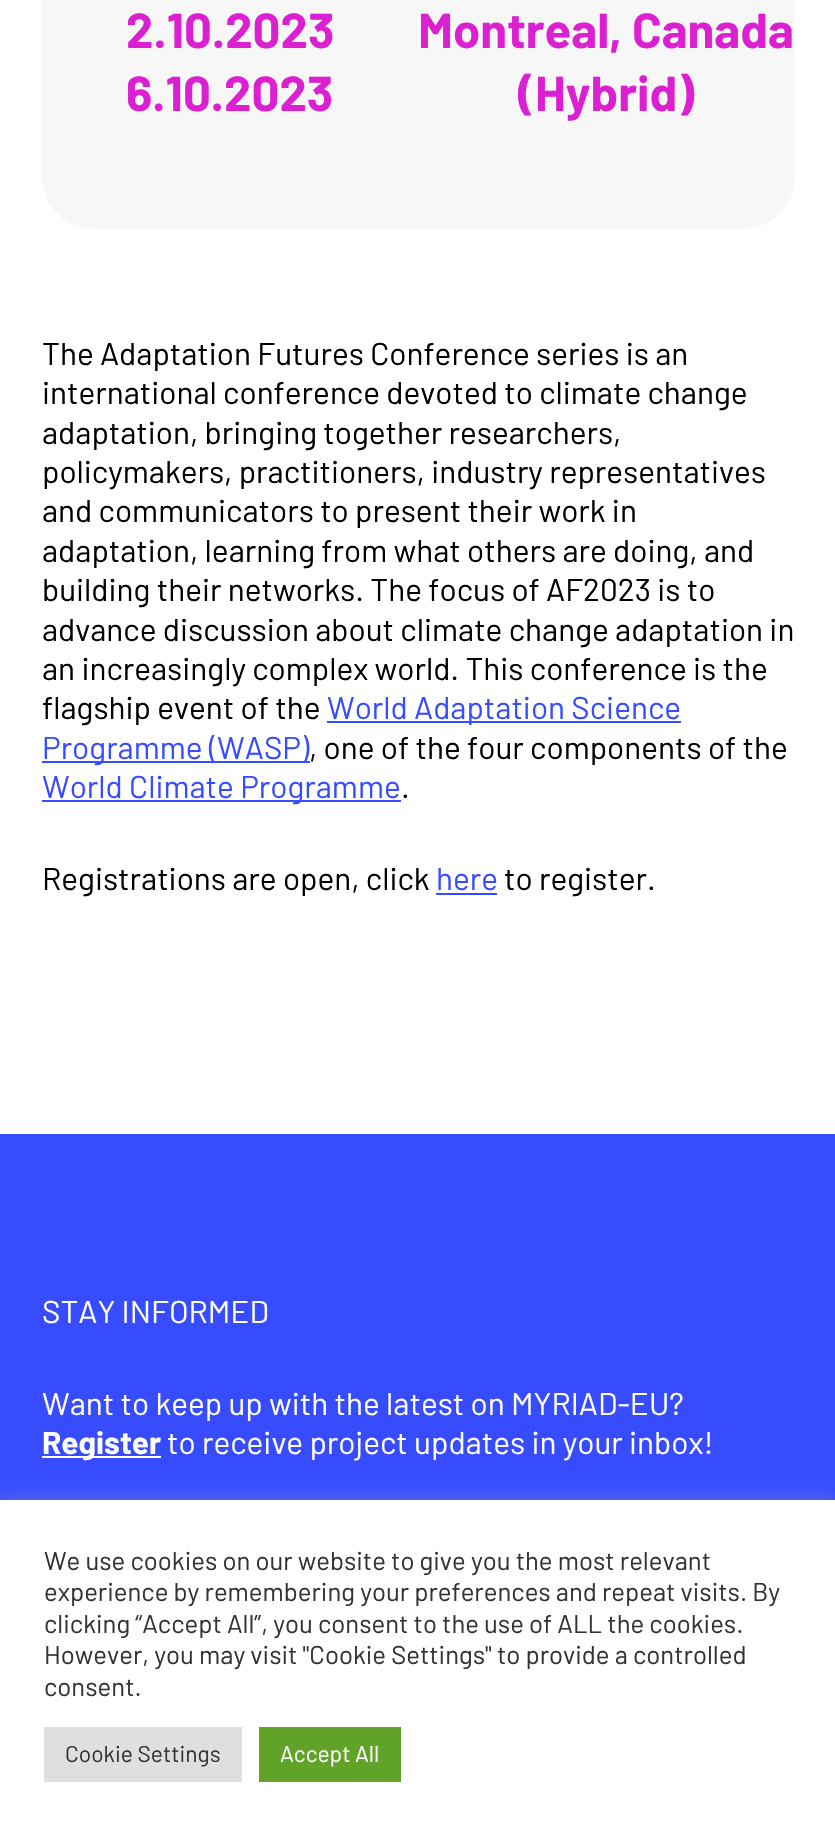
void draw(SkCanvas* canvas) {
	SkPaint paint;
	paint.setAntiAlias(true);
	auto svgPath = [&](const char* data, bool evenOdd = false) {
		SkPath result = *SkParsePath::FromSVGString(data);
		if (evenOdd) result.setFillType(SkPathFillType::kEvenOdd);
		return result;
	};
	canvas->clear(0xffffffff);
	paint.setColor(0xfff7f7f7);
	canvas->drawPath(svgPath("M42-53H795V176C795 205.5 771.5 229 742 229H95C65.5 229 42 205.5 42 176Z"), paint);
	SkFont f1(fontMgr->matchFamilyStyle("Barlow", SkFontStyle::Bold()), 49);
	f1.setSubpixel(true);
	paint.setColor(0xffdb20d2);
	canvas->drawString("2.10.2023", 126, 48, f1, paint);
	canvas->drawString("6.10.2023", 126, 111, f1, paint);
	canvas->drawString("Montreal, Canada", 418, 48, f1, paint);
	canvas->drawString("(Hybrid)", 518, 111, f1, paint);
	SkFont f2(fontMgr->matchFamilyStyle("Barlow", SkFontStyle::Normal()), 31.5);
	f2.setSubpixel(true);
	paint.setColor(0xff000000);
	canvas->drawString("The Adaptation Futures Conference series is an", 42, 365, f2, paint);
	canvas->drawString("international conference devoted to climate change", 42, 404, f2, paint);
	canvas->drawString("adaptation, bringing together researchers,", 42, 444, f2, paint);
	canvas->drawString("policymakers, practitioners, industry representatives", 42, 483, f2, paint);
	canvas->drawString("and communicators to present their work in", 42, 522, f2, paint);
	canvas->drawString("adaptation, learning from what others are doing, and", 42, 562, f2, paint);
	canvas->drawString("building their networks. The focus of AF2023 is to", 42, 601, f2, paint);
	canvas->drawString("advance discussion about climate change adaptation in", 42, 641, f2, paint);
	canvas->drawString("an increasingly complex world. This conference is the", 42, 680, f2, paint);
	canvas->drawString("flagship event of the", 42, 719, f2, paint);
	paint.setColor(0xff374cff);
	canvas->drawRect(SkRect::MakeXYWH(327, 721, 354, 2), paint);
	canvas->drawString("World Adaptation Science", 327, 719, f2, paint);
	canvas->drawRect(SkRect::MakeXYWH(42, 761, 268, 2), paint);
	canvas->drawString("Programme (WASP)", 42, 759, f2, paint);
	paint.setColor(0xff000000);
	canvas->drawString(", one of the four components of the", 309, 759, f2, paint);
	paint.setColor(0xff374cff);
	canvas->drawRect(SkRect::MakeXYWH(42, 800, 359, 2), paint);
	canvas->drawString("World Climate Programme", 42, 798, f2, paint);
	paint.setColor(0xff000000);
	canvas->drawString(".", 401, 798, f2, paint);
	canvas->drawString("Registrations are open, click", 42, 890, f2, paint);
	paint.setColor(0xff374cff);
	canvas->drawString("here", 436, 890, f2, paint);
	canvas->drawRect(SkRect::MakeXYWH(436, 893, 61, 2), paint);
	paint.setColor(0xff000000);
	canvas->drawString("to register.", 504, 890, f2, paint);
	paint.setColor(0xff374cff);
	canvas->drawRect(SkRect::MakeXYWH(0, 1134, 835, 366), paint);
	paint.setColor(0xffffffff);
	canvas->drawString("STAY INFORMED", 42, 1323, f2, paint);
	canvas->drawString("Want to keep up with the latest on MYRIAD-EU?", 42, 1415, f2, paint);
	canvas->drawRect(SkRect::MakeXYWH(42, 1456, 119, 2), paint);
	SkFont f3(fontMgr->matchFamilyStyle("Barlow", SkFontStyle::Bold()), 31.5);
	f3.setSubpixel(true);
	canvas->drawString("Register", 42, 1454, f3, paint);
	canvas->drawString("to receive project updates in your inbox!", 167, 1454, f2, paint);
	paint.setColor(0x4dacabab);
	paint.setMaskFilter(SkMaskFilter::MakeBlur(kNormal_SkBlurStyle, 9));
	canvas->drawRect(SkRect::MakeXYWH(0, 1498, 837, 334), paint);
	paint.setMaskFilter(nullptr);
	paint.setColor(0xffffffff);
	canvas->drawRect(SkRect::MakeXYWH(0, 1500, 835, 333), paint);
	SkFont f4(fontMgr->matchFamilyStyle("Barlow", SkFontStyle::Normal()), 25.7);
	f4.setSubpixel(true);
	paint.setColor(0xff333333);
	canvas->drawString("We use cookies on our website to give you the most relevant", 44, 1570, f4, paint);
	canvas->drawString("experience by remembering your preferences and repeat visits. By", 44, 1601, f4, paint);
	canvas->drawString("clicking “Accept All”, you consent to the use of ALL the cookies.", 44, 1633, f4, paint);
	canvas->drawString("However, you may visit \"Cookie Settings\" to provide a controlled", 44, 1664, f4, paint);
	canvas->drawString("consent.", 44, 1696, f4, paint);
	paint.setColor(0xffdedfe0);
	canvas->drawRect(SkRect::MakeXYWH(44, 1727, 198, 55), paint);
	SkFont f5(fontMgr->matchFamilyStyle("Barlow", SkFontStyle::Normal()), 22.75);
	f5.setSubpixel(true);
	paint.setColor(0xff333333);
	canvas->drawString("Cookie Settings", 65, 1762, f5, paint);
	paint.setColor(0xff61a229);
	canvas->drawRect(SkRect::MakeXYWH(259, 1727, 142, 55), paint);
	paint.setColor(0xffffffff);
	canvas->drawString("Accept All", 280, 1762, f5, paint);
}
